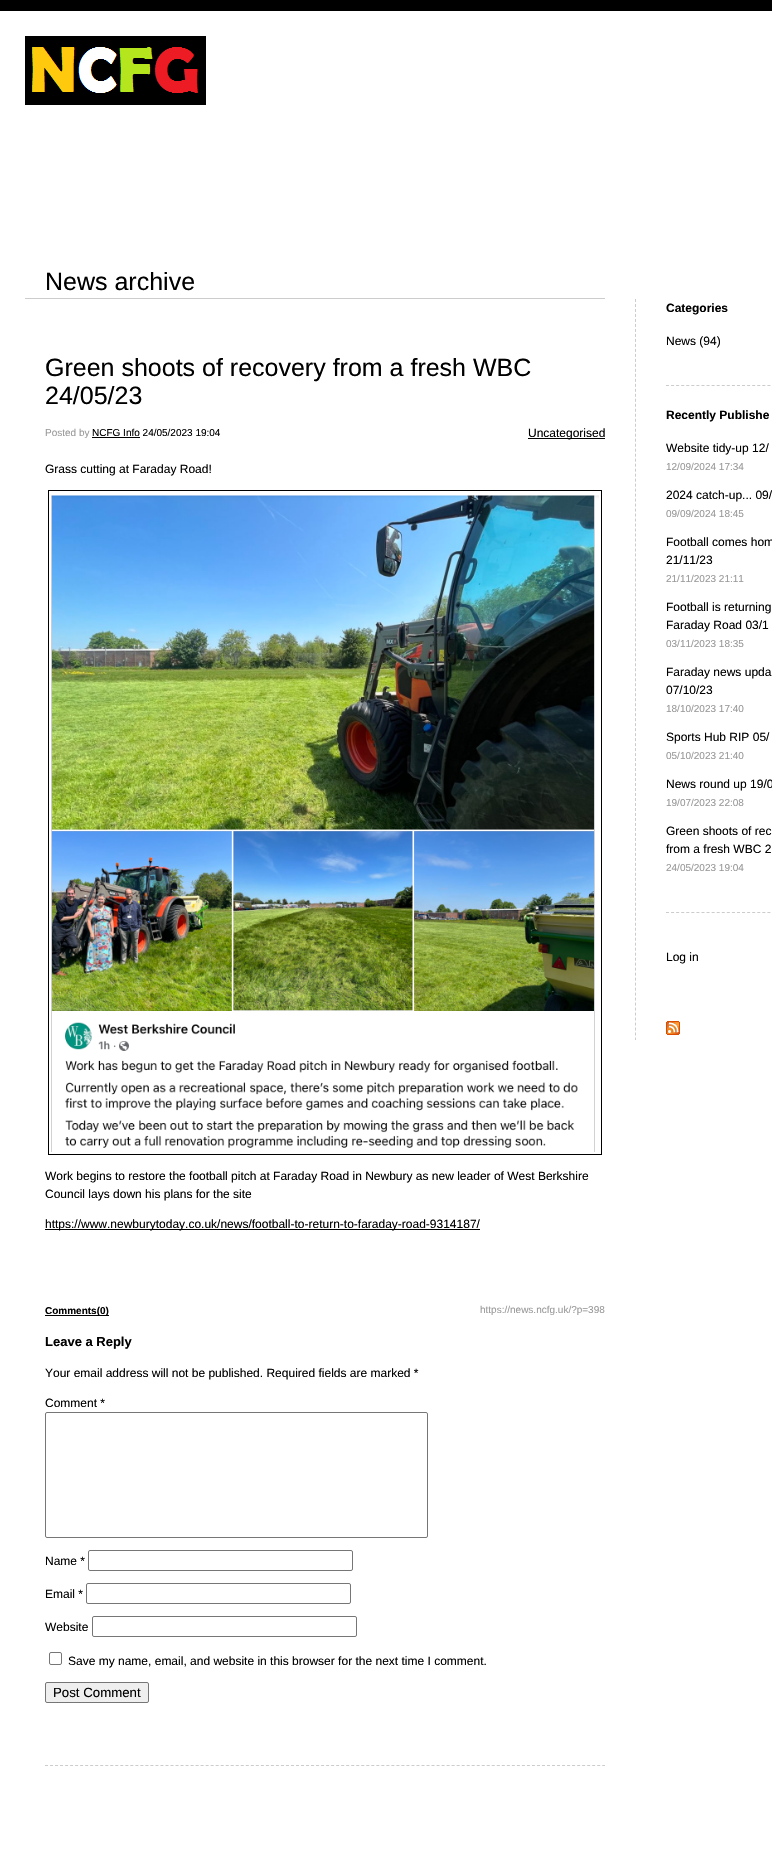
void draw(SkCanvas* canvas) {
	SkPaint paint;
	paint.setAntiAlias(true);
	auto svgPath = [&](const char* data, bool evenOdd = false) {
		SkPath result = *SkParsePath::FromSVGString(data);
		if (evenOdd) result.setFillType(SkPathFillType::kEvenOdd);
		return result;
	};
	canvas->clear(0xff000000);
	paint.setColor(0xffffffff);
	canvas->drawRect(SkRect::MakeXYWH(0, 11, 772, 1860), paint);
	canvas->drawImageRect(SkImages::DeferredFromEncodedData(SkData::MakeFromFileName("img1.png")), SkRect::MakeXYWH(25, 36, 181, 69), SkSamplingOptions());
	paint.setColor(0xffcccccc);
	canvas->drawRect(SkRect::MakeXYWH(25, 298, 580, 1), paint);
	SkFont f1(fontMgr->matchFamilyStyle("Liberation Sans", SkFontStyle::Normal()), 25);
	f1.setSubpixel(true);
	paint.setColor(0xff000000);
	canvas->drawString("News archive", 45, 290, f1, paint);
	paint.setStroke(true);
	paint.setStrokeWidth(1);
	paint.setColor(0xffcccccc);
	paint.setPathEffect(SkDashPathEffect::Make({{3, 2.02f}}, 0));
	canvas->drawPath(svgPath("M45 1765.5H605"), paint);
	paint.setPathEffect(nullptr);
	paint.setStroke(false);
	paint.setColor(0xff000000);
	canvas->drawString("Green shoots of recovery from a fresh WBC", 45, 376, f1, paint);
	canvas->drawString("24/05/23", 45, 404, f1, paint);
	SkFont f2(fontMgr->matchFamilyStyle("Liberation Sans", SkFontStyle::Normal()), 10);
	f2.setSubpixel(true);
	paint.setColor(0xff999999);
	canvas->drawString("Posted by", 45, 436, f2, paint);
	paint.setColor(0xff000000);
	canvas->drawRect(SkRect::MakeXYWH(92, 437, 48, 1), paint);
	canvas->drawString("NCFG Info 24/05/2023 19:04", 92, 436, f2, paint);
	canvas->drawRect(SkRect::MakeXYWH(528, 438, 77, 1), paint);
	SkFont f3(fontMgr->matchFamilyStyle("Liberation Sans", SkFontStyle::Normal()), 12);
	f3.setSubpixel(true);
	canvas->drawString("Uncategorised", 528, 437, f3, paint);
	canvas->drawString("Grass cutting at Faraday Road!", 45, 473, f3, paint);
	paint.setStroke(true);
	canvas->drawRect(SkRect::MakeXYWH(48.5, 490.5, 553, 664), paint);
	canvas->drawImageRect(SkImages::DeferredFromEncodedData(SkData::MakeFromFileName("img2.png")), SkRect::MakeXYWH(51, 495, 548, 657), SkSamplingOptions());
	paint.setStroke(false);
	canvas->drawString("Work begins to restore the football pitch at Faraday Road in Newbury as new leader of West Berkshire", 45, 1180, f3, paint);
	canvas->drawString("Council lays down his plans for the site", 45, 1198, f3, paint);
	canvas->drawRect(SkRect::MakeXYWH(45, 1229, 435, 1), paint);
	canvas->drawString("https://www.newburytoday.co.uk/news/football-to-return-to-faraday-road-9314187/", 45, 1228, f3, paint);
	canvas->drawRect(SkRect::MakeXYWH(45, 1315, 64, 1), paint);
	SkFont f4(fontMgr->matchFamilyStyle("Liberation Sans", SkFontStyle::Bold()), 10);
	f4.setSubpixel(true);
	canvas->drawString("Comments(0)", 45, 1314, f4, paint);
	paint.setColor(0xff999999);
	canvas->drawString("https://news.ncfg.uk/?p=398", 480, 1313, f2, paint);
	SkFont f5(fontMgr->matchFamilyStyle("Liberation Sans", SkFontStyle::Bold()), 13);
	f5.setSubpixel(true);
	paint.setColor(0xff000000);
	canvas->drawString("Leave a Reply", 45, 1346, f5, paint);
	canvas->drawString("Your email address will not be published. Required fields are marked *", 45, 1377, f3, paint);
	canvas->drawString("Comment *", 45, 1407, f3, paint);
	paint.setStroke(true);
	paint.setColor(0xff767676);
	canvas->drawRoundRect(SkRect::MakeXYWH(45.5, 1412.5, 382, 125), 1.5, 1.5, paint);
	paint.setStroke(false);
	paint.setColor(0xff000000);
	canvas->drawString("Name *", 45, 1565, f3, paint);
	paint.setStroke(true);
	paint.setColor(0xff767676);
	canvas->drawRoundRect(SkRect::MakeXYWH(88.5, 1550.5, 264, 20), 1.5, 1.5, paint);
	paint.setStroke(false);
	paint.setColor(0xff000000);
	canvas->drawString("Email *", 45, 1598, f3, paint);
	paint.setStroke(true);
	paint.setColor(0xff767676);
	canvas->drawRoundRect(SkRect::MakeXYWH(86.5, 1583.5, 264, 20), 1.5, 1.5, paint);
	paint.setStroke(false);
	paint.setColor(0xff000000);
	canvas->drawString("Website", 45, 1631, f3, paint);
	paint.setStroke(true);
	paint.setColor(0xff767676);
	canvas->drawRoundRect(SkRect::MakeXYWH(92.5, 1616.5, 264, 20), 1.5, 1.5, paint);
	canvas->drawRoundRect(SkRect::MakeXYWH(49.5, 1652.5, 12, 12), 1.5, 1.5, paint);
	paint.setStroke(false);
	paint.setColor(0xff000000);
	canvas->drawString("Save my name, email, and website in this browser for the next time I comment.", 68, 1665, f3, paint);
	paint.setColor(0xffefefef);
	canvas->drawRoundRect(SkRect::MakeXYWH(45.5, 1682.5, 103, 20), 1.5, 1.5, paint);
	paint.setStroke(true);
	paint.setColor(0xff767676);
	canvas->drawRoundRect(SkRect::MakeXYWH(45.5, 1682.5, 103, 20), 1.5, 1.5, paint);
	SkFont f6(fontMgr->matchFamilyStyle("Liberation Sans", SkFontStyle::Normal()), 13.25);
	f6.setSubpixel(true);
	paint.setStroke(false);
	paint.setColor(0xff000000);
	canvas->drawString("Post Comment", 53, 1697, f6, paint);
	paint.setStroke(true);
	paint.setColor(0xffcccccc);
	paint.setPathEffect(SkDashPathEffect::Make({{3, 1.99f}}, 0));
	canvas->drawPath(svgPath("M635.5 299V1040"), paint);
	paint.setPathEffect(nullptr);
	paint.setPathEffect(SkDashPathEffect::Make({{3, 2.07f}}, 0));
	canvas->drawPath(svgPath("M666 385.5H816"), paint);
	paint.setPathEffect(nullptr);
	SkFont f7(fontMgr->matchFamilyStyle("Liberation Sans", SkFontStyle::Bold()), 12);
	f7.setSubpixel(true);
	paint.setStroke(false);
	paint.setColor(0xff000000);
	canvas->drawString("Categories", 666, 312, f7, paint);
	canvas->drawString("News (94)", 666, 345, f3, paint);
	paint.setStroke(true);
	paint.setColor(0xffcccccc);
	paint.setPathEffect(SkDashPathEffect::Make({{3, 2.07f}}, 0));
	canvas->drawPath(svgPath("M666 912.5H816"), paint);
	paint.setPathEffect(nullptr);
	paint.setStroke(false);
	paint.setColor(0xff000000);
	canvas->drawString("Recently Publishe", 666, 419, f7, paint);
	canvas->drawString("Website tidy-up 12/", 666, 452, f3, paint);
	paint.setColor(0xff999999);
	canvas->drawString("12/09/2024 17:34", 666, 470, f2, paint);
	paint.setColor(0xff000000);
	canvas->drawString("2024 catch-up... 09/", 666, 499, f3, paint);
	paint.setColor(0xff999999);
	canvas->drawString("09/09/2024 18:45", 666, 517, f2, paint);
	paint.setColor(0xff000000);
	canvas->drawString("Football comes hom", 666, 546, f3, paint);
	canvas->drawString("21/11/23", 666, 564, f3, paint);
	paint.setColor(0xff999999);
	canvas->drawString("21/11/2023 21:11", 666, 582, f2, paint);
	paint.setColor(0xff000000);
	canvas->drawString("Football is returning", 666, 611, f3, paint);
	canvas->drawString("Faraday Road 03/1", 666, 629, f3, paint);
	paint.setColor(0xff999999);
	canvas->drawString("03/11/2023 18:35", 666, 647, f2, paint);
	paint.setColor(0xff000000);
	canvas->drawString("Faraday news upda", 666, 676, f3, paint);
	canvas->drawString("07/10/23", 666, 694, f3, paint);
	paint.setColor(0xff999999);
	canvas->drawString("18/10/2023 17:40", 666, 712, f2, paint);
	paint.setColor(0xff000000);
	canvas->drawString("Sports Hub RIP 05/", 666, 741, f3, paint);
	paint.setColor(0xff999999);
	canvas->drawString("05/10/2023 21:40", 666, 759, f2, paint);
	paint.setColor(0xff000000);
	canvas->drawString("News round up 19/0", 666, 788, f3, paint);
	paint.setColor(0xff999999);
	canvas->drawString("19/07/2023 22:08", 666, 806, f2, paint);
	paint.setColor(0xff000000);
	canvas->drawString("Green shoots of rec", 666, 835, f3, paint);
	canvas->drawString("from a fresh WBC 2", 666, 853, f3, paint);
	paint.setColor(0xff999999);
	canvas->drawString("24/05/2023 19:04", 666, 871, f2, paint);
	paint.setColor(0xff000000);
	canvas->drawString("Log in", 666, 961, f3, paint);
	canvas->drawImageRect(SkImages::DeferredFromEncodedData(SkData::MakeFromFileName("img3.png")), SkRect::MakeXYWH(666, 1021, 14, 14), SkSamplingOptions());
}
